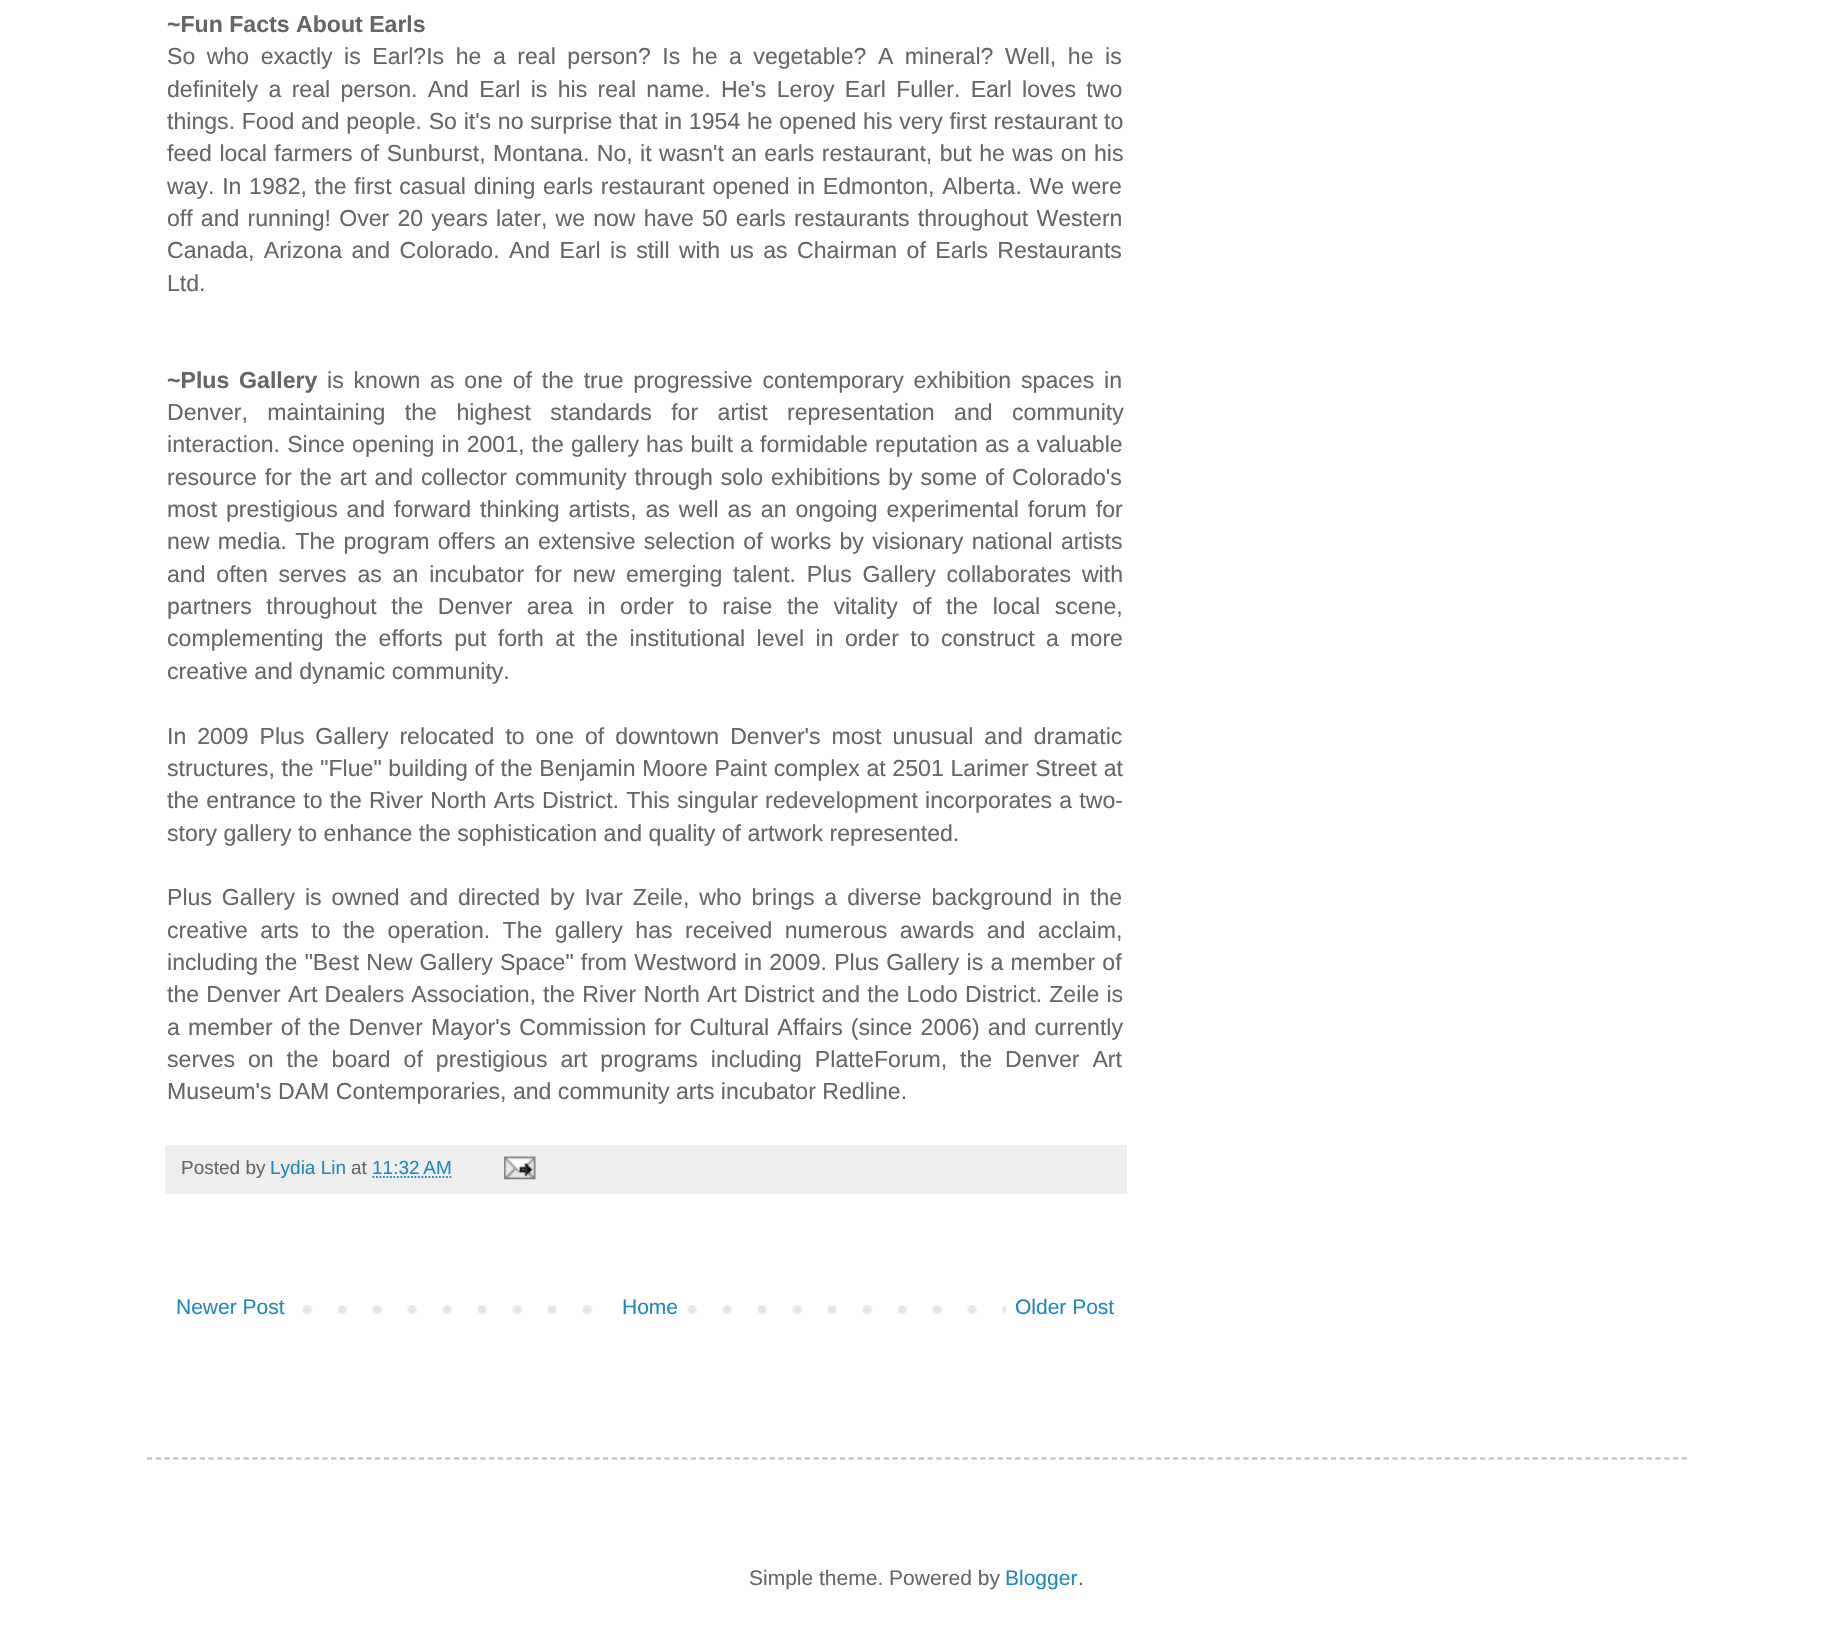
void draw(SkCanvas* canvas) {
	SkPaint paint;
	paint.setAntiAlias(true);
	auto spacedText = [&](const char* s, float x, float y, const SkFont& font, const SkPaint& ink, float letter, float word) {
		std::vector<SkGlyphID> glyphs(font.countText(s, strlen(s), SkTextEncoding::kUTF8));
		std::vector<float> xs(glyphs.size());
		font.textToGlyphs(s, strlen(s), SkTextEncoding::kUTF8, glyphs);
		font.getXPos(glyphs, xs, x);
		float extra = 0;
		for (size_t i = 0; i < glyphs.size(); i++) {
			xs[i] += extra;
			extra += letter + word * (glyphs[i] == font.unicharToGlyph(' '));
		}
		canvas->drawTextBlob(SkTextBlob::MakeFromPosHGlyphs(glyphs, xs, y, font), 0, 0, ink);
	};
	auto svgPath = [&](const char* data, bool evenOdd = false) {
		SkPath result = *SkParsePath::FromSVGString(data);
		if (evenOdd) result.setFillType(SkPathFillType::kEvenOdd);
		return result;
	};
	canvas->clear(0xffffffff);
	SkFont f1(fontMgr->matchFamilyStyle("Liberation Sans", SkFontStyle::Bold()), 23.1);
	f1.setSubpixel(true);
	paint.setColor(0xff666666);
	canvas->drawString("~Fun Facts About Earls", 167, 32, f1, paint);
	SkFont f2(fontMgr->matchFamilyStyle("Liberation Sans", SkFontStyle::Normal()), 23.1);
	f2.setSubpixel(true);
	spacedText("So who exactly is Earl?Is he a real person? Is he a vegetable? A mineral? Well, he is", 167, 64, f2, paint, 0, 5.1);
	spacedText("definitely a real person. And Earl is his real name. He's Leroy Earl Fuller. Earl loves two", 167, 97, f2, paint, 0, 3.9);
	spacedText("things. Food and people. So it's no surprise that in 1954 he opened his very first restaurant to", 167, 129, f2, paint, 0, 0.25);
	spacedText("feed local farmers of Sunburst, Montana. No, it wasn't an earls restaurant, but he was on his", 167, 161, f2, paint, 0, 1);
	spacedText("way. In 1982, the first casual dining earls restaurant opened in Edmonton, Alberta. We were", 167, 194, f2, paint, 0, 1.25);
	spacedText("off and running! Over 20 years later, we now have 50 earls restaurants throughout Western", 167, 226, f2, paint, 0, 1.75);
	spacedText("Canada, Arizona and Colorado. And Earl is still with us as Chairman of Earls Restaurants", 167, 258, f2, paint, 0, 3);
	canvas->drawString("Ltd.", 167, 291, f2, paint);
	spacedText("~Plus Gallery", 167, 388, f1, paint, 0, 3.4);
	spacedText("is known as one of the true progressive contemporary exhibition spaces in", 327, 388, f2, paint, 0, 3.4);
	spacedText("Denver, maintaining the highest standards for artist representation and community", 167, 420, f2, paint, 0, 13);
	spacedText("interaction. Since opening in 2001, the gallery has built a formidable reputation as a valuable", 167, 452, f2, paint, 0, 0.75);
	spacedText("resource for the art and collector community through solo exhibitions by some of Colorado's", 167, 485, f2, paint, 0, 1.5);
	spacedText("most prestigious and forward thinking artists, as well as an ongoing experimental forum for", 167, 517, f2, paint, 0, 2.5);
	spacedText("new media. The program offers an extensive selection of works by visionary national artists", 167, 549, f2, paint, 0, 1.9);
	spacedText("and often serves as an incubator for new emerging talent. Plus Gallery collaborates with", 167, 582, f2, paint, 0, 4.4);
	spacedText("partners throughout the Denver area in order to raise the vitality of the local scene,", 167, 614, f2, paint, 0, 8.1);
	spacedText("complementing the efforts put forth at the institutional level in order to construct a more", 167, 646, f2, paint, 0, 5);
	canvas->drawString("creative and dynamic community.", 167, 679, f2, paint);
	spacedText("In 2009 Plus Gallery relocated to one of downtown Denver's most unusual and dramatic", 167, 744, f2, paint, 0, 4.5);
	spacedText("structures, the \"Flue\" building of the Benjamin Moore Paint complex at 2501 Larimer Street at", 167, 776, f2, paint, 0, 0.25);
	spacedText("the entrance to the River North Arts District. This singular redevelopment incorporates a two-", 167, 808, f2, paint, 0, 0.75);
	canvas->drawString("story gallery to enhance the sophistication and quality of artwork represented.", 167, 841, f2, paint);
	spacedText("Plus Gallery is owned and directed by Ivar Zeile, who brings a diverse background in the", 167, 905, f2, paint, 0, 3.5);
	spacedText("creative arts to the operation. The gallery has received numerous awards and acclaim,", 167, 938, f2, paint, 0, 6);
	spacedText("including the \"Best New Gallery Space\" from Westword in 2009. Plus Gallery is a member of", 167, 970, f2, paint, 0, 0.75);
	spacedText("the Denver Art Dealers Association, the River North Art District and the Lodo District. Zeile is", 167, 1002, f2, paint, 0, 0.75);
	spacedText("a member of the Denver Mayor's Commission for Cultural Affairs (since 2006) and currently", 167, 1035, f2, paint, 0, 1.7);
	spacedText("serves on the board of prestigious art programs including PlatteForum, the Denver Art", 167, 1067, f2, paint, 0, 6.5);
	canvas->drawString("Museum's DAM Contemporaries, and community arts incubator Redline.", 167, 1099, f2, paint);
	paint.setColor(0xffeeeeee);
	canvas->drawRect(SkRect::MakeXYWH(165, 1145, 962, 49), paint);
	SkFont f3(fontMgr->matchFamilyStyle("Liberation Sans", SkFontStyle::Normal()), 19);
	f3.setSubpixel(true);
	paint.setColor(0xff666666);
	canvas->drawString("Posted by", 181, 1174, f3, paint);
	paint.setColor(0xff2288bb);
	canvas->drawString("Lydia Lin", 270, 1174, f3, paint);
	paint.setColor(0xff666666);
	canvas->drawString("at", 351, 1174, f3, paint);
	paint.setColor(0xff2288bb);
	canvas->drawString("11:32 AM", 372, 1174, f3, paint);
	paint.setStroke(true);
	paint.setStrokeWidth(1.8);
	paint.setPathEffect(SkDashPathEffect::Make({{1.75f, 1.75f}}, 0));
	canvas->drawPath(svgPath("M372.5 1177H452"), paint);
	paint.setPathEffect(nullptr);
	canvas->drawImageRect(SkImages::DeferredFromEncodedData(SkData::MakeFromFileName("img1.png")), SkRect::MakeXYWH(504, 1156, 32, 24), SkSamplingOptions());
	canvas->drawImageRect(SkImages::DeferredFromEncodedData(SkData::MakeFromFileName("img2.png")), SkRect::MakeXYWH(302, 1305, 704, 9), SkSamplingOptions());
	SkFont f4(fontMgr->matchFamilyStyle("Liberation Sans", SkFontStyle::Normal()), 21);
	f4.setSubpixel(true);
	paint.setStroke(false);
	canvas->drawString("Newer Post", 176, 1314, f4, paint);
	paint.setColor(0xffffffff);
	canvas->drawRect(SkRect::MakeXYWH(617, 1305, 46, 9), paint);
	paint.setColor(0xff2288bb);
	canvas->drawString("Home", 622, 1314, f4, paint);
	canvas->drawString("Older Post", 1015, 1314, f4, paint);
	paint.setStroke(true);
	paint.setColor(0xffbbbbbb);
	paint.setPathEffect(SkDashPathEffect::Make({{5.25f, 3.52f}}, 0));
	canvas->drawPath(svgPath("M147 1458.5H1687"), paint);
	paint.setPathEffect(nullptr);
	paint.setStroke(false);
	paint.setColor(0xff666666);
	canvas->drawString("Simple theme. Powered by", 749, 1585, f4, paint);
	paint.setColor(0xff2288bb);
	canvas->drawString("Blogger", 1005, 1585, f4, paint);
	paint.setColor(0xff666666);
	canvas->drawString(".", 1078, 1585, f4, paint);
}
